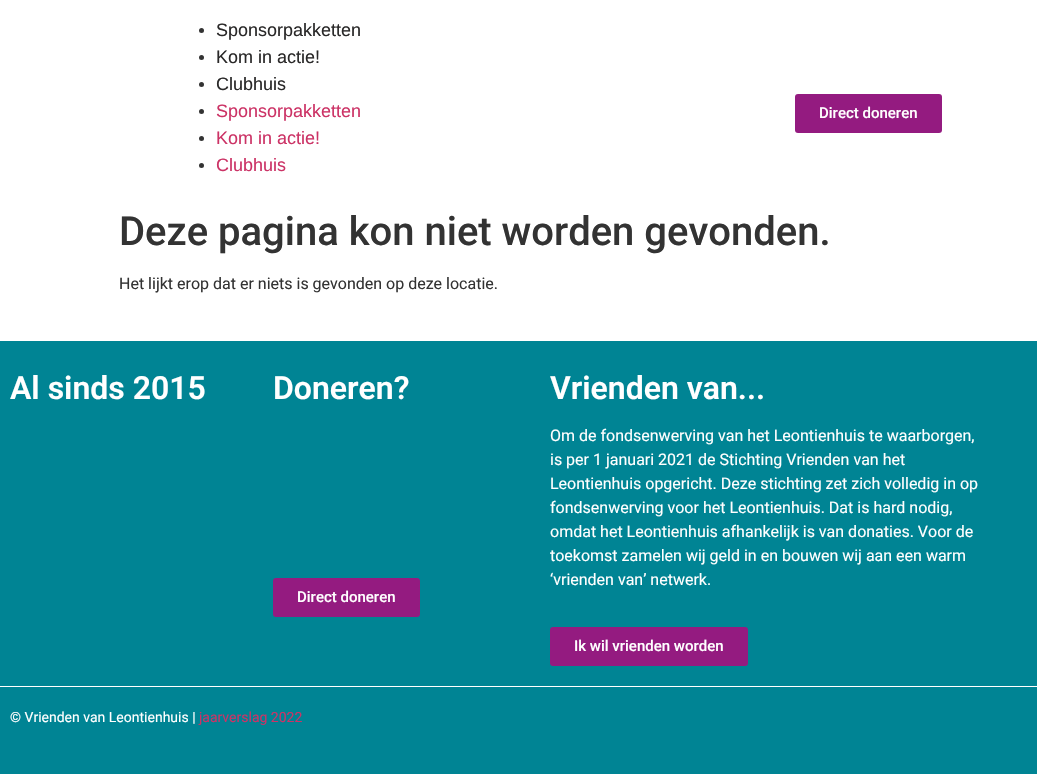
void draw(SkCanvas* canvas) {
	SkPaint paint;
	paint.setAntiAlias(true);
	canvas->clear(0xffffffff);
	paint.setColor(0xff333333);
	canvas->drawCircle(201.5, 30.5, 2.5, paint);
	SkFont f1(fontMgr->matchFamilyStyle("Liberation Sans", SkFontStyle::Normal()), 18);
	f1.setSubpixel(true);
	paint.setColor(0xff2a2929);
	canvas->drawString("Sponsorpakketten", 216, 36, f1, paint);
	paint.setColor(0xff333333);
	canvas->drawCircle(201.5, 57.5, 2.5, paint);
	paint.setColor(0xff2a2929);
	canvas->drawString("Kom in actie!", 216, 63, f1, paint);
	paint.setColor(0xff333333);
	canvas->drawCircle(201.5, 84.5, 2.5, paint);
	paint.setColor(0xff2a2929);
	canvas->drawString("Clubhuis", 216, 90, f1, paint);
	paint.setColor(0xff333333);
	canvas->drawCircle(201.5, 111.5, 2.5, paint);
	paint.setColor(0xffcc3366);
	canvas->drawString("Sponsorpakketten", 216, 117, f1, paint);
	paint.setColor(0xff333333);
	canvas->drawCircle(201.5, 138.5, 2.5, paint);
	paint.setColor(0xffcc3366);
	canvas->drawString("Kom in actie!", 216, 144, f1, paint);
	paint.setColor(0xff333333);
	canvas->drawCircle(201.5, 165.5, 2.5, paint);
	paint.setColor(0xffcc3366);
	canvas->drawString("Clubhuis", 216, 171, f1, paint);
	paint.setColor(0xff941b80);
	canvas->drawRoundRect(SkRect::MakeXYWH(795, 94, 147, 39), 3, 3, paint);
	SkFont f2(fontMgr->matchFamilyStyle("Roboto", SkFontStyle(500, SkFontStyle::kNormal_Width, SkFontStyle::kUpright_Slant)), 15);
	f2.setSubpixel(true);
	paint.setColor(0xffffffff);
	canvas->drawString("Direct doneren", 819, 118, f2, paint);
	SkFont f3(fontMgr->matchFamilyStyle("Roboto", SkFontStyle(500, SkFontStyle::kNormal_Width, SkFontStyle::kUpright_Slant)), 40);
	f3.setSubpixel(true);
	paint.setColor(0xff333333);
	canvas->drawString("Deze pagina kon niet worden gevonden.", 119, 245, f3, paint);
	SkFont f4(fontMgr->matchFamilyStyle("Roboto", SkFontStyle::Normal()), 16);
	f4.setSubpixel(true);
	canvas->drawString("Het lijkt erop dat er niets is gevonden op deze locatie.", 119, 289, f4, paint);
	paint.setColor(0xff008494);
	canvas->drawRect(SkRect::MakeXYWH(0, 341, 1037, 433), paint);
	SkFont f5(fontMgr->matchFamilyStyle("Roboto", SkFontStyle(600, SkFontStyle::kNormal_Width, SkFontStyle::kUpright_Slant)), 32);
	f5.setSubpixel(true);
	paint.setColor(0xffffffff);
	canvas->drawString("Al sinds 2015", 10, 399, f5, paint);
	canvas->drawString("Doneren?", 273, 399, f5, paint);
	paint.setColor(0xff941b80);
	canvas->drawRoundRect(SkRect::MakeXYWH(273, 578, 147, 39), 3, 3, paint);
	paint.setColor(0xffffffff);
	canvas->drawString("Direct doneren", 297, 602, f2, paint);
	canvas->drawString("Vrienden van...", 550, 399, f5, paint);
	canvas->drawString("Om de fondsenwerving van het Leontienhuis te waarborgen,", 550, 441, f4, paint);
	canvas->drawString("is per 1 januari 2021 de Stichting Vrienden van het", 550, 465, f4, paint);
	canvas->drawString("Leontienhuis opgericht. Deze stichting zet zich volledig in op", 550, 489, f4, paint);
	canvas->drawString("fondsenwerving voor het Leontienhuis. Dat is hard nodig,", 550, 513, f4, paint);
	canvas->drawString("omdat het Leontienhuis afhankelijk is van donaties. Voor de", 550, 537, f4, paint);
	canvas->drawString("toekomst zamelen wij geld in en bouwen wij aan een warm", 550, 561, f4, paint);
	canvas->drawString("‘vrienden van’ netwerk.", 550, 585, f4, paint);
	paint.setColor(0xff941b80);
	canvas->drawRoundRect(SkRect::MakeXYWH(550, 627, 198, 39), 3, 3, paint);
	paint.setColor(0xffffffff);
	canvas->drawString("Ik wil vrienden worden", 574, 651, f2, paint);
	canvas->drawRect(SkRect::MakeXYWH(0, 686, 1037, 1), paint);
	SkFont f6(fontMgr->matchFamilyStyle("Roboto", SkFontStyle::Normal()), 14);
	f6.setSubpixel(true);
	canvas->drawString("© Vrienden van Leontienhuis |", 10, 722, f6, paint);
	paint.setColor(0xffcc3366);
	canvas->drawString("jaarverslag 2022", 199, 722, f6, paint);
}
